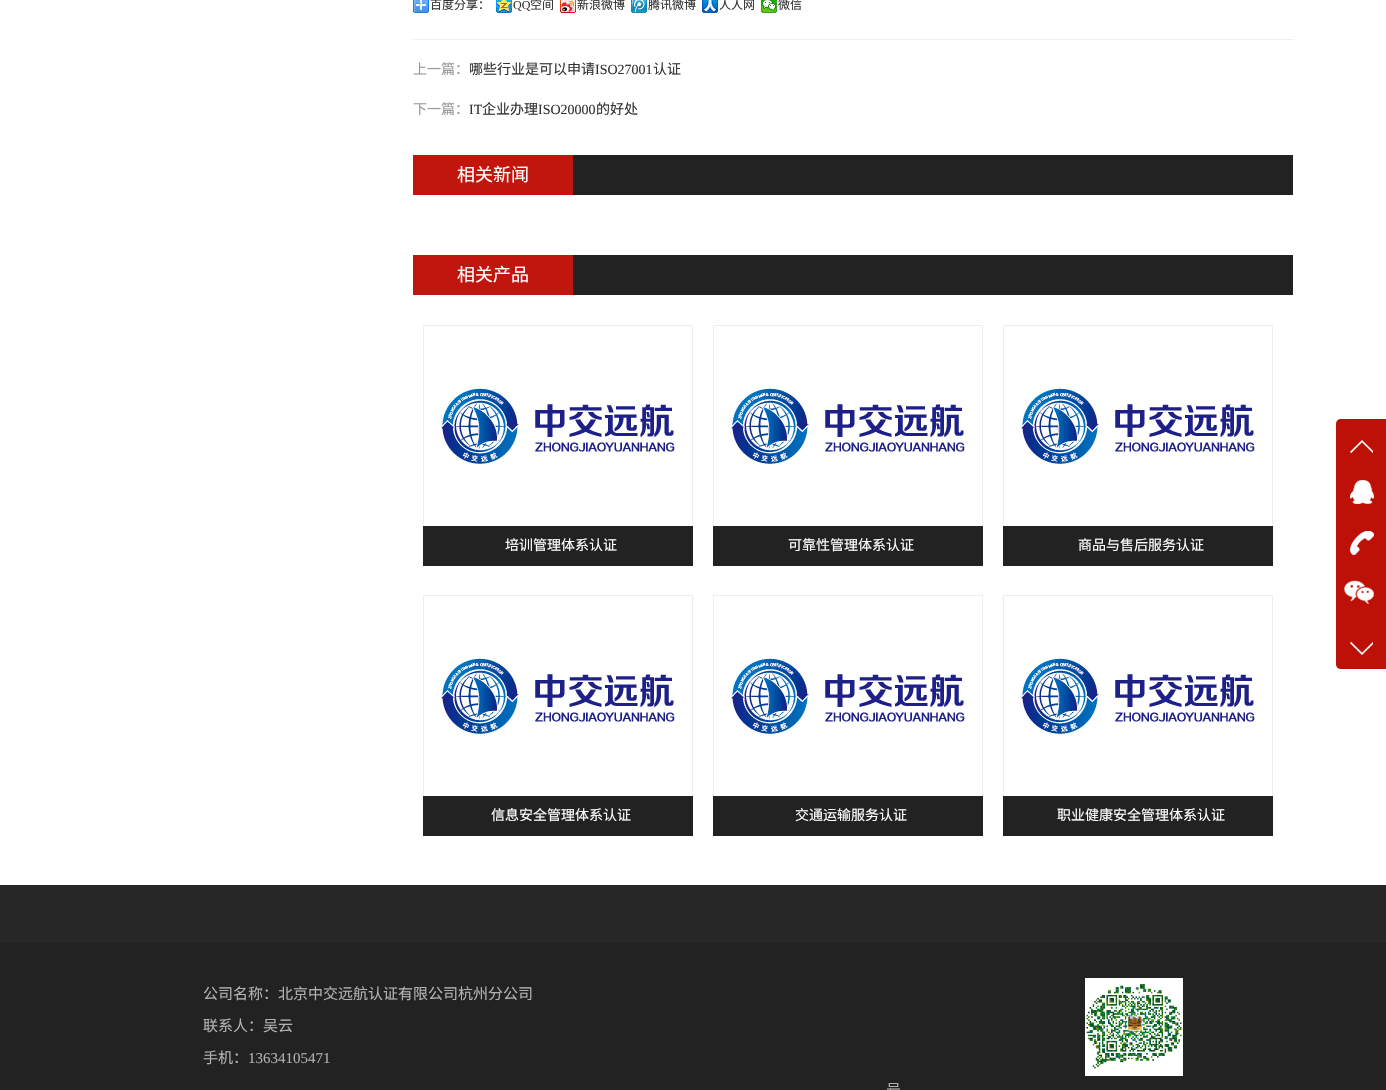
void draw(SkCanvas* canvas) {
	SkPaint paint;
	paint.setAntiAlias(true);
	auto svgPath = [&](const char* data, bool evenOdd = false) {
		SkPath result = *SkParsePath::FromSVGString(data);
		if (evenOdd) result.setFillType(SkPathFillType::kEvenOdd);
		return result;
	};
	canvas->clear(0xffffffff);
	paint.setColor(0xffeeeeee);
	canvas->drawRect(SkRect::MakeXYWH(413, 39, 880, 1), paint);
	canvas->drawImageRect(SkImages::DeferredFromEncodedData(SkData::MakeFromFileName("img1.png")), SkRect::MakeXYWH(413, 0, 16, 13), SkSamplingOptions());
	SkFont f1(fontMgr->matchFamilyStyle("Noto Sans CJK SC", SkFontStyle::Normal()), 12);
	f1.setSubpixel(true);
	paint.setColor(0xff333333);
	canvas->drawString("百度分享：", 430, 9, f1, paint);
	canvas->drawImageRect(SkImages::DeferredFromEncodedData(SkData::MakeFromFileName("img2.png")), SkRect::MakeXYWH(496, 0, 16, 13), SkSamplingOptions());
	SkFont f2(fontMgr->matchFamilyStyle("Liberation Serif", SkFontStyle::Normal()), 12);
	f2.setSubpixel(true);
	canvas->drawString("QQ", 513, 9, f2, paint);
	canvas->drawString("空间", 530, 9, f1, paint);
	canvas->drawImageRect(SkImages::DeferredFromEncodedData(SkData::MakeFromFileName("img3.png")), SkRect::MakeXYWH(560, 0, 16, 13), SkSamplingOptions());
	canvas->drawString("新浪微博", 577, 9, f1, paint);
	canvas->drawImageRect(SkImages::DeferredFromEncodedData(SkData::MakeFromFileName("img4.png")), SkRect::MakeXYWH(631, 0, 16, 13), SkSamplingOptions());
	canvas->drawString("腾讯微博", 648, 9, f1, paint);
	canvas->drawImageRect(SkImages::DeferredFromEncodedData(SkData::MakeFromFileName("img5.png")), SkRect::MakeXYWH(702, 0, 16, 13), SkSamplingOptions());
	canvas->drawString("人人网", 719, 9, f1, paint);
	canvas->drawImageRect(SkImages::DeferredFromEncodedData(SkData::MakeFromFileName("img6.png")), SkRect::MakeXYWH(761, 0, 16, 13), SkSamplingOptions());
	canvas->drawString("微信", 778, 9, f1, paint);
	SkFont f3(fontMgr->matchFamilyStyle("Noto Sans CJK SC", SkFontStyle::Normal()), 14);
	f3.setSubpixel(true);
	paint.setColor(0xff999999);
	canvas->drawString("上一篇：", 413, 74, f3, paint);
	paint.setColor(0xff333333);
	canvas->drawString("哪些行业是可以申请", 469, 74, f3, paint);
	SkFont f4(fontMgr->matchFamilyStyle("Liberation Serif", SkFontStyle::Normal()), 14);
	f4.setSubpixel(true);
	canvas->drawString("ISO27001", 595, 74, f4, paint);
	canvas->drawString("认证", 653, 74, f3, paint);
	paint.setColor(0xff999999);
	canvas->drawString("下一篇：", 413, 114, f3, paint);
	paint.setColor(0xff333333);
	canvas->drawString("IT", 469, 114, f4, paint);
	canvas->drawString("企业办理", 482, 114, f3, paint);
	canvas->drawString("ISO20000", 538, 114, f4, paint);
	canvas->drawString("的好处", 596, 114, f3, paint);
	paint.setColor(0xff222222);
	canvas->drawRect(SkRect::MakeXYWH(573, 155, 720, 40), paint);
	paint.setColor(0xffc0160d);
	canvas->drawRect(SkRect::MakeXYWH(413, 155, 160, 40), paint);
	SkFont f5(fontMgr->matchFamilyStyle("Noto Sans CJK SC", SkFontStyle::Normal()), 18);
	f5.setSubpixel(true);
	paint.setColor(0xffffffff);
	canvas->drawString("相关新闻", 457, 181, f5, paint);
	paint.setColor(0xff222222);
	canvas->drawRect(SkRect::MakeXYWH(573, 255, 720, 40), paint);
	paint.setColor(0xffc0160d);
	canvas->drawRect(SkRect::MakeXYWH(413, 255, 160, 40), paint);
	paint.setColor(0xffffffff);
	canvas->drawString("相关产品", 457, 281, f5, paint);
	paint.setColor(0xffededed);
	canvas->drawRect(SkRect::MakeXYWH(423, 325, 270, 1), paint);
	canvas->drawRect(SkRect::MakeXYWH(692, 325, 1, 201), paint);
	canvas->drawRect(SkRect::MakeXYWH(423, 325, 1, 201), paint);
	canvas->drawImageRect(SkImages::DeferredFromEncodedData(SkData::MakeFromFileName("img7.png")), SkRect::MakeXYWH(441, 388, 235, 76), SkSamplingOptions());
	paint.setColor(0xff222222);
	canvas->drawRect(SkRect::MakeXYWH(423, 526, 270, 40), paint);
	paint.setColor(0xffffffff);
	canvas->drawString("培训管理体系认证", 505, 550, f3, paint);
	paint.setColor(0xffededed);
	canvas->drawRect(SkRect::MakeXYWH(713, 325, 270, 1), paint);
	canvas->drawRect(SkRect::MakeXYWH(982, 325, 1, 201), paint);
	canvas->drawRect(SkRect::MakeXYWH(713, 325, 1, 201), paint);
	canvas->drawImageRect(SkImages::DeferredFromEncodedData(SkData::MakeFromFileName("img7.png")), SkRect::MakeXYWH(731, 388, 235, 76), SkSamplingOptions());
	paint.setColor(0xff222222);
	canvas->drawRect(SkRect::MakeXYWH(713, 526, 270, 40), paint);
	paint.setColor(0xffffffff);
	canvas->drawString("可靠性管理体系认证", 788, 550, f3, paint);
	paint.setColor(0xffededed);
	canvas->drawRect(SkRect::MakeXYWH(1003, 325, 270, 1), paint);
	canvas->drawRect(SkRect::MakeXYWH(1272, 325, 1, 201), paint);
	canvas->drawRect(SkRect::MakeXYWH(1003, 325, 1, 201), paint);
	canvas->drawImageRect(SkImages::DeferredFromEncodedData(SkData::MakeFromFileName("img7.png")), SkRect::MakeXYWH(1021, 388, 235, 76), SkSamplingOptions());
	paint.setColor(0xff222222);
	canvas->drawRect(SkRect::MakeXYWH(1003, 526, 270, 40), paint);
	paint.setColor(0xffffffff);
	canvas->drawString("商品与售后服务认证", 1078, 550, f3, paint);
	paint.setColor(0xffededed);
	canvas->drawRect(SkRect::MakeXYWH(423, 595, 270, 1), paint);
	canvas->drawRect(SkRect::MakeXYWH(692, 595, 1, 201), paint);
	canvas->drawRect(SkRect::MakeXYWH(423, 595, 1, 201), paint);
	canvas->drawImageRect(SkImages::DeferredFromEncodedData(SkData::MakeFromFileName("img7.png")), SkRect::MakeXYWH(441, 658, 235, 76), SkSamplingOptions());
	paint.setColor(0xff222222);
	canvas->drawRect(SkRect::MakeXYWH(423, 796, 270, 40), paint);
	paint.setColor(0xffffffff);
	canvas->drawString("信息安全管理体系认证", 491, 820, f3, paint);
	paint.setColor(0xffededed);
	canvas->drawRect(SkRect::MakeXYWH(713, 595, 270, 1), paint);
	canvas->drawRect(SkRect::MakeXYWH(982, 595, 1, 201), paint);
	canvas->drawRect(SkRect::MakeXYWH(713, 595, 1, 201), paint);
	canvas->drawImageRect(SkImages::DeferredFromEncodedData(SkData::MakeFromFileName("img7.png")), SkRect::MakeXYWH(731, 658, 235, 76), SkSamplingOptions());
	paint.setColor(0xff222222);
	canvas->drawRect(SkRect::MakeXYWH(713, 796, 270, 40), paint);
	paint.setColor(0xffffffff);
	canvas->drawString("交通运输服务认证", 795, 820, f3, paint);
	paint.setColor(0xffededed);
	canvas->drawRect(SkRect::MakeXYWH(1003, 595, 270, 1), paint);
	canvas->drawRect(SkRect::MakeXYWH(1272, 595, 1, 201), paint);
	canvas->drawRect(SkRect::MakeXYWH(1003, 595, 1, 201), paint);
	canvas->drawImageRect(SkImages::DeferredFromEncodedData(SkData::MakeFromFileName("img7.png")), SkRect::MakeXYWH(1021, 658, 235, 76), SkSamplingOptions());
	paint.setColor(0xff222222);
	canvas->drawRect(SkRect::MakeXYWH(1003, 796, 270, 40), paint);
	paint.setColor(0xffffffff);
	canvas->drawString("职业健康安全管理体系认证", 1057, 820, f3, paint);
	paint.setColor(0xffbd1007);
	canvas->drawPath(svgPath("M1341 419H1386V669H1341C1338 669 1336 667 1336 664V424C1336 421 1338 419 1341 419Z"), paint);
	canvas->drawImageRect(SkImages::DeferredFromEncodedData(SkData::MakeFromFileName("img8.png")), SkRect::MakeXYWH(1350, 440, 23, 13), SkSamplingOptions());
	canvas->drawImageRect(SkImages::DeferredFromEncodedData(SkData::MakeFromFileName("img9.png")), SkRect::MakeXYWH(1350, 480, 24, 24), SkSamplingOptions());
	canvas->drawImageRect(SkImages::DeferredFromEncodedData(SkData::MakeFromFileName("img10.png")), SkRect::MakeXYWH(1350, 531, 24, 24), SkSamplingOptions());
	canvas->drawImageRect(SkImages::DeferredFromEncodedData(SkData::MakeFromFileName("img11.png")), SkRect::MakeXYWH(1344, 580, 30, 25), SkSamplingOptions());
	canvas->drawImageRect(SkImages::DeferredFromEncodedData(SkData::MakeFromFileName("img12.png")), SkRect::MakeXYWH(1350, 642, 23, 13), SkSamplingOptions());
	paint.setColor(0xff272727);
	canvas->drawRect(SkRect::MakeXYWH(0, 885, 1386, 58), paint);
	paint.setColor(0xff222222);
	canvas->drawRect(SkRect::MakeXYWH(0, 943, 1386, 147), paint);
	SkFont f6(fontMgr->matchFamilyStyle("Noto Sans CJK SC", SkFontStyle::Normal()), 15);
	f6.setSubpixel(true);
	paint.setColor(0xffb2b1b1);
	canvas->drawString("公司名称：北京中交远航认证有限公司杭州分公司", 203, 999, f6, paint);
	canvas->drawString("联系人：吴云", 203, 1031, f6, paint);
	canvas->drawString("手机：", 203, 1063, f6, paint);
	SkFont f7(fontMgr->matchFamilyStyle("Liberation Serif", SkFontStyle::Normal()), 15);
	f7.setSubpixel(true);
	canvas->drawString("13634105471", 248, 1063, f7, paint);
	canvas->drawString("号", 886, 1095, f6, paint);
	canvas->drawImageRect(SkImages::DeferredFromEncodedData(SkData::MakeFromFileName("img13.png")), SkRect::MakeXYWH(1085, 978, 98, 98), SkSamplingOptions());
}
